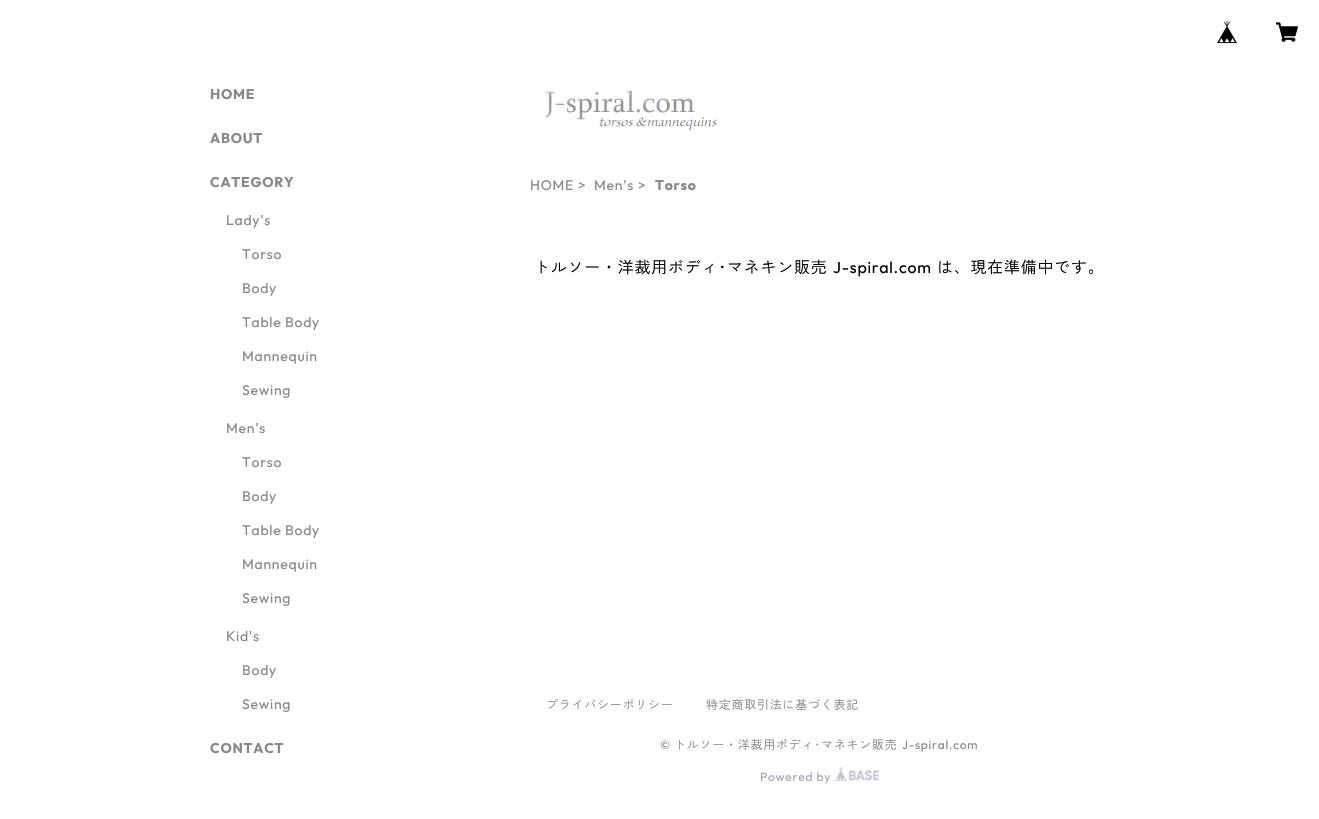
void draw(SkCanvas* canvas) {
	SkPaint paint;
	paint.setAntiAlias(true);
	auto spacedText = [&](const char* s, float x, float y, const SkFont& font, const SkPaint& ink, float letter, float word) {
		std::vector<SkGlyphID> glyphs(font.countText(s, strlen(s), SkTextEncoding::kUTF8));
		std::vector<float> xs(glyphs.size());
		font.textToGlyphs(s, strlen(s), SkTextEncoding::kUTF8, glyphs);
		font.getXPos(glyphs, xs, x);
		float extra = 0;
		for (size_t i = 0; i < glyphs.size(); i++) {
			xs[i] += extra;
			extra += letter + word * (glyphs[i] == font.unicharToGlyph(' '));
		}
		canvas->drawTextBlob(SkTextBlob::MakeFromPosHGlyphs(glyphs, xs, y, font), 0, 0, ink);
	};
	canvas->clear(0xffffffff);
	canvas->drawImageRect(SkImages::DeferredFromEncodedData(SkData::MakeFromFileName("img1.png")), SkRect::MakeXYWH(1217, 21, 20, 23), SkSamplingOptions());
	canvas->drawImageRect(SkImages::DeferredFromEncodedData(SkData::MakeFromFileName("img2.png")), SkRect::MakeXYWH(1276, 22, 22, 20), SkSamplingOptions());
	SkFont f1(fontMgr->matchFamilyStyle("Outfit", SkFontStyle::Bold()), 14);
	f1.setSubpixel(true);
	paint.setColor(0xff888888);
	spacedText("HOME", 210, 99, f1, paint, 0.75, 0);
	spacedText("ABOUT", 210, 143, f1, paint, 0.75, 0);
	spacedText("CATEGORY", 210, 187, f1, paint, 0.75, 0);
	SkFont f2(fontMgr->matchFamilyStyle("Outfit", SkFontStyle::Normal()), 14);
	f2.setSubpixel(true);
	spacedText("Lady's", 226, 225, f2, paint, 0.75, 0);
	spacedText("Torso", 242, 259, f2, paint, 0.75, 0);
	spacedText("Body", 242, 293, f2, paint, 0.75, 0);
	spacedText("Table Body", 242, 327, f2, paint, 0.75, 0);
	spacedText("Mannequin", 242, 361, f2, paint, 0.75, 0);
	spacedText("Sewing", 242, 395, f2, paint, 0.75, 0);
	spacedText("Men's", 226, 433, f2, paint, 0.75, 0);
	spacedText("Torso", 242, 467, f2, paint, 0.75, 0);
	spacedText("Body", 242, 501, f2, paint, 0.75, 0);
	spacedText("Table Body", 242, 535, f2, paint, 0.75, 0);
	spacedText("Mannequin", 242, 569, f2, paint, 0.75, 0);
	spacedText("Sewing", 242, 603, f2, paint, 0.75, 0);
	spacedText("Kid's", 226, 641, f2, paint, 0.75, 0);
	spacedText("Body", 242, 675, f2, paint, 0.75, 0);
	spacedText("Sewing", 242, 709, f2, paint, 0.75, 0);
	spacedText("CONTACT", 210, 753, f1, paint, 0.75, 0);
	canvas->drawImageRect(SkImages::DeferredFromEncodedData(SkData::MakeFromFileName("img3.png")), SkRect::MakeXYWH(542, 88, 176, 44), SkSamplingOptions());
	spacedText("HOME", 530, 190, f2, paint, 0.75, 0);
	spacedText(">", 578, 190, f2, paint, 0.75, 0);
	spacedText("Men's", 594, 190, f2, paint, 0.75, 0);
	spacedText(">", 638, 190, f2, paint, 0.75, 0);
	spacedText("Torso", 655, 190, f1, paint, 0.75, 0);
	SkFont f3(fontMgr->matchFamilyStyle("Zen Kaku Gothic New", SkFontStyle::Normal()), 16);
	f3.setSubpixel(true);
	paint.setColor(0xff000000);
	spacedText("トルソー・洋裁用ボディ･マネキン販売", 534, 273, f3, paint, 0.75, 0);
	SkFont f4(fontMgr->matchFamilyStyle("Outfit", SkFontStyle::Normal()), 16);
	f4.setSubpixel(true);
	spacedText("J-spiral.com", 833, 273, f4, paint, 0.75, 0);
	spacedText("は、現在準備中です。", 937, 273, f3, paint, 0.75, 0);
	SkFont f5(fontMgr->matchFamilyStyle("Zen Kaku Gothic New", SkFontStyle::Normal()), 12);
	f5.setSubpixel(true);
	paint.setColor(0xff888888);
	spacedText("プライバシーポリシー", 546, 709, f5, paint, 0.75, 0);
	spacedText("特定商取引法に基づく表記", 706, 709, f5, paint, 0.75, 0);
	SkFont f6(fontMgr->matchFamilyStyle("Outfit", SkFontStyle::Normal()), 12);
	f6.setSubpixel(true);
	spacedText("©", 660, 749, f6, paint, 0.75, 0);
	spacedText("トルソー・洋裁用ボディ･マネキン販売", 674, 749, f5, paint, 0.75, 0);
	spacedText("J-spiral.com", 902, 749, f6, paint, 0.75, 0);
	paint.setColor(0xffa0a7b4);
	spacedText("Powered by", 760, 781, f6, paint, 0.75, 0);
	canvas->drawImageRect(SkImages::DeferredFromEncodedData(SkData::MakeFromFileName("img4.png")), SkRect::MakeXYWH(835, 767, 44, 14), SkSamplingOptions());
}
